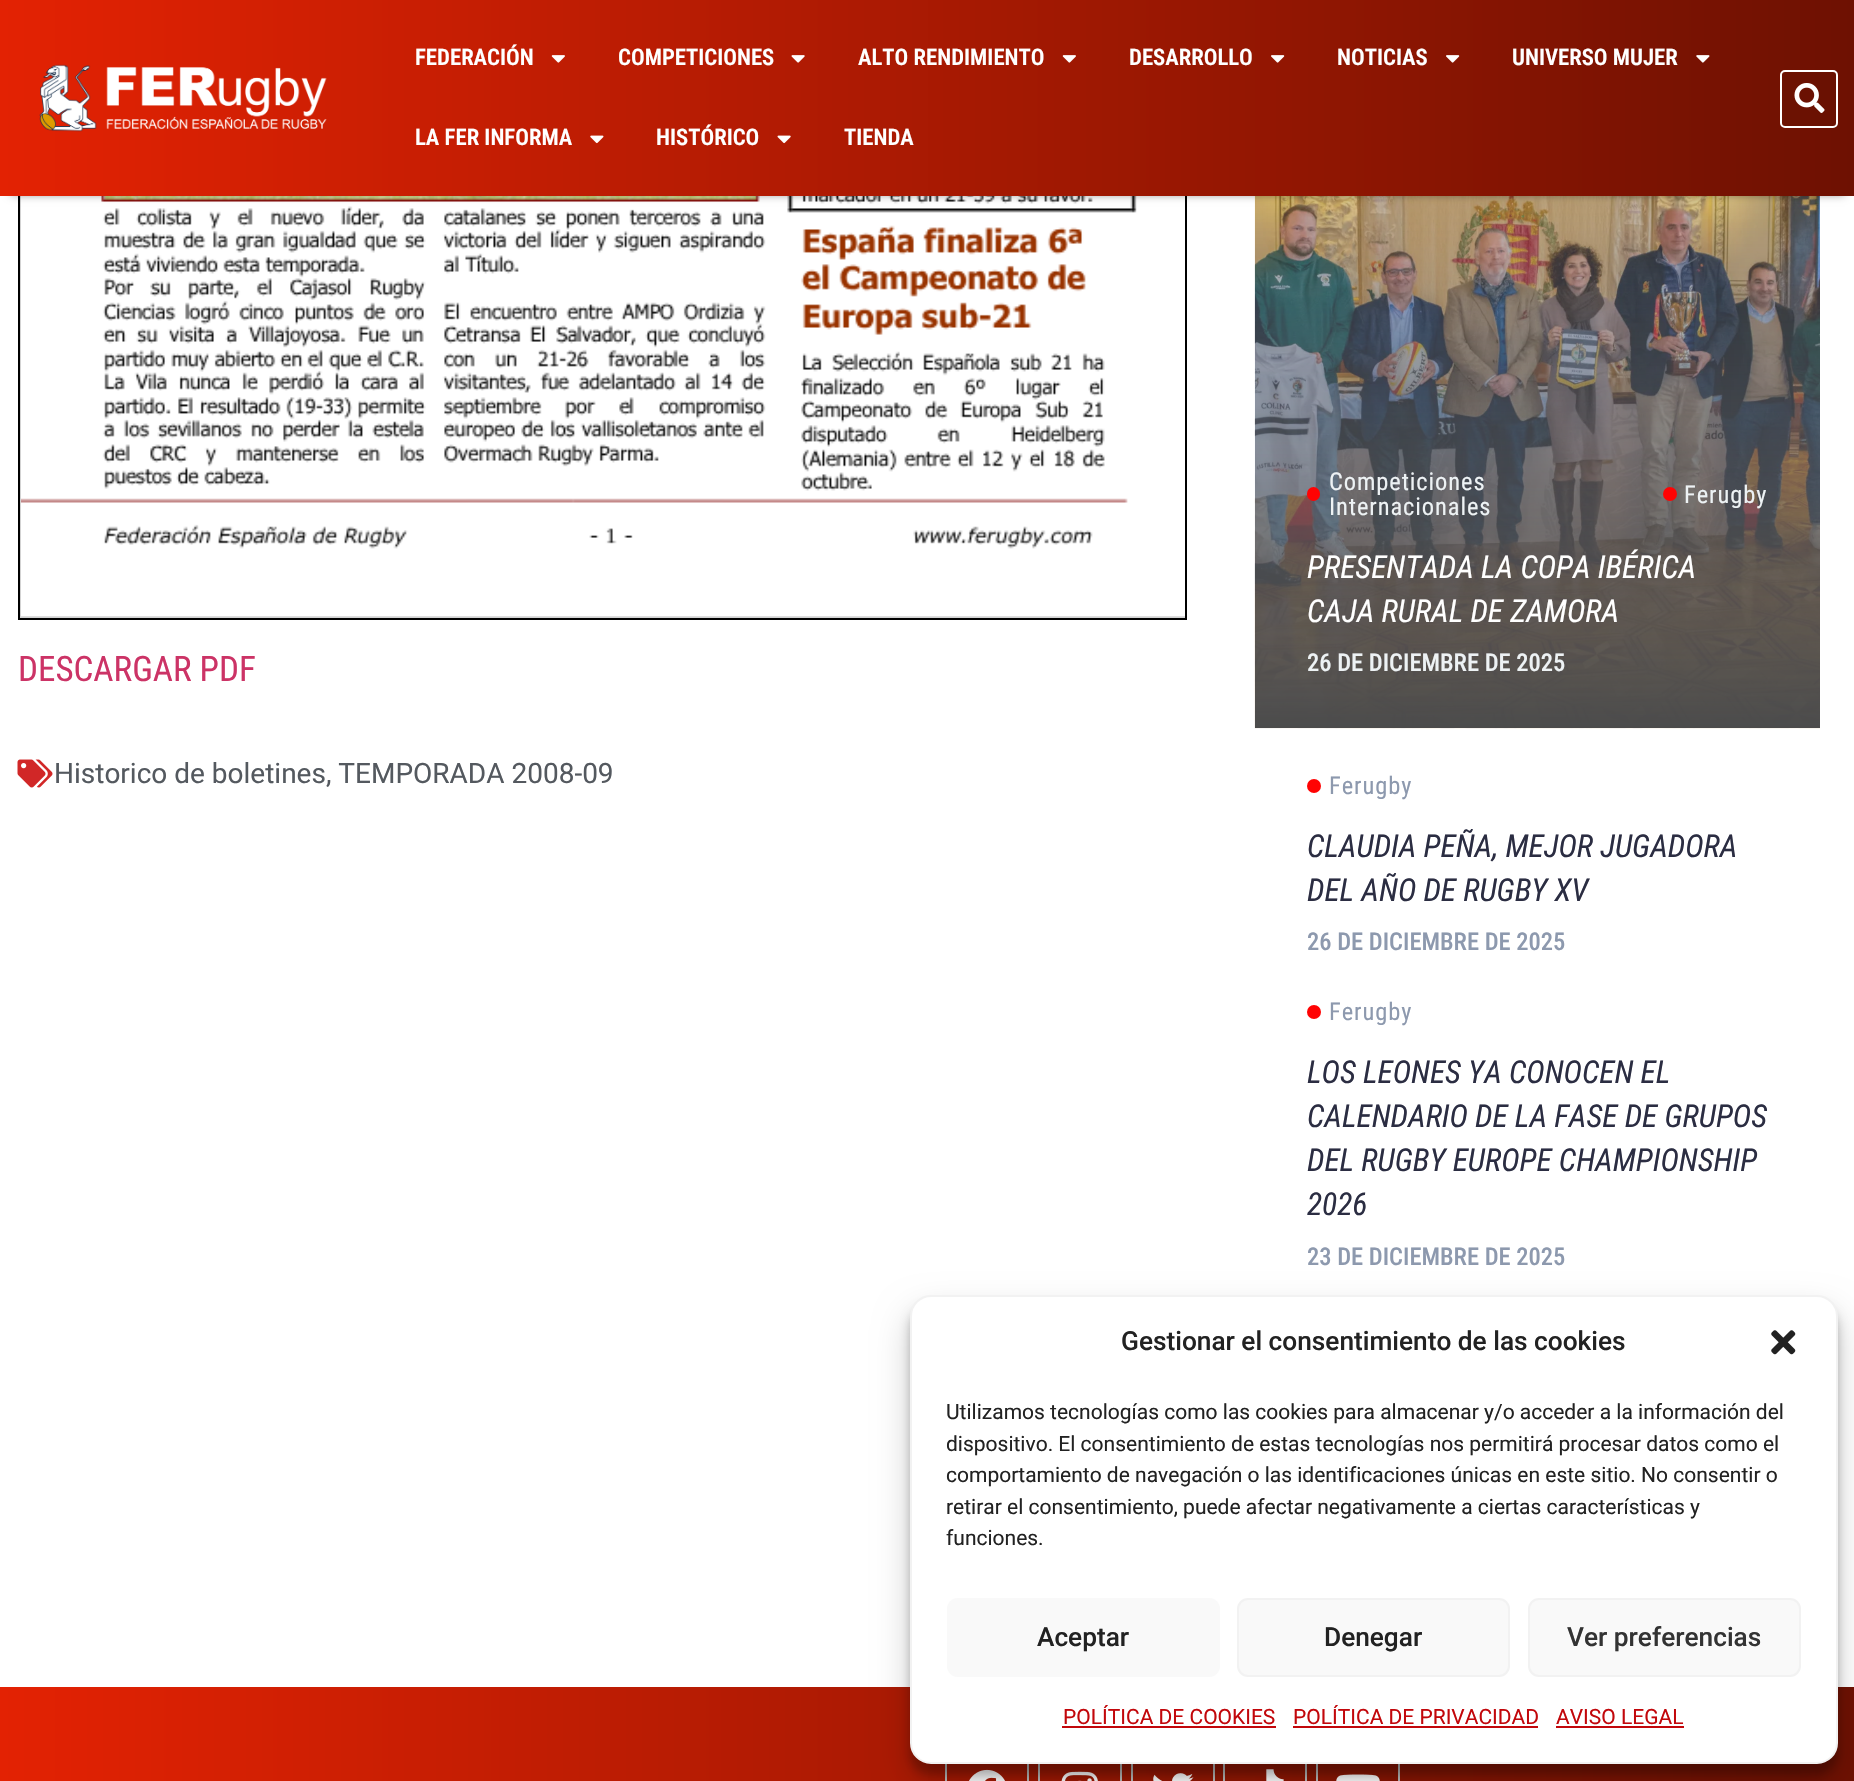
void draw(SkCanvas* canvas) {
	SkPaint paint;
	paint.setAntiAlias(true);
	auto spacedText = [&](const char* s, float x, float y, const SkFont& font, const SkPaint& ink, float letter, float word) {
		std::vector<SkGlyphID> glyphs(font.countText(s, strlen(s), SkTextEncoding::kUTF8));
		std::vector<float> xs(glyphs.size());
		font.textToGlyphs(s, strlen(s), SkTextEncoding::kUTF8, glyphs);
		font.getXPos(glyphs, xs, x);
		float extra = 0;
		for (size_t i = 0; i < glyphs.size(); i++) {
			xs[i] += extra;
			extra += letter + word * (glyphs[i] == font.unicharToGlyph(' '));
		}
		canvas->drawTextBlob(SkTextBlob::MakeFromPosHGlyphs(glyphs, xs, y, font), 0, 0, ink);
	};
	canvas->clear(0xffffffff);
	paint.setColor(0xffd3d3d3);
	canvas->drawRect(SkRect::MakeXYWH(20, 196, 1165, 422), paint);
	paint.setStroke(true);
	paint.setStrokeWidth(2);
	paint.setColor(0xff000000);
	canvas->drawRect(SkRect::MakeXYWH(19, -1, 1167, 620), paint);
	canvas->drawImageRect(SkImages::DeferredFromEncodedData(SkData::MakeFromFileName("img11.png")), SkRect::MakeXYWH(21, 196, 1164, 421), SkSamplingOptions());
	canvas->drawImageRect(SkImages::DeferredFromEncodedData(SkData::MakeFromFileName("img13.png")), SkRect::MakeXYWH(1254, 196, 566, 533), SkSamplingOptions());
	paint.setStroke(false);
	{
		const SkColor colors[] = {0xff4b4b4b, 0x1a8d99ae};
		const float stops[] = {0, 1};
		const SkPoint ends[] = {{1537, 728}, {1537, 28}};
		paint.setShader(SkGradientShader::MakeLinear(ends, colors, stops, 2, SkTileMode::kClamp));
		paint.setAlpha(255);
	}
	canvas->drawRect(SkRect::MakeXYWH(1255, 196, 565, 532), paint);
	paint.setShader(nullptr);
	paint.setColor(0x80000000);
	paint.setMaskFilter(SkMaskFilter::MakeBlur(kNormal_SkBlurStyle, 4.5));
	canvas->drawRect(SkRect::MakeXYWH(11, 19, 1834, 175), paint);
	paint.setMaskFilter(nullptr);
	{
		const SkColor colors[] = {0xffe32203, 0xff6e1102};
		const float stops[] = {0, 1};
		const SkPoint ends[] = {{0, 98}, {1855, 98}};
		paint.setShader(SkGradientShader::MakeLinear(ends, colors, stops, 2, SkTileMode::kClamp));
		paint.setAlpha(255);
	}
	canvas->drawRect(SkRect::MakeXYWH(0, 0, 1854, 196), paint);
	canvas->drawImageRect(SkImages::DeferredFromEncodedData(SkData::MakeFromFileName("img1.png")), SkRect::MakeXYWH(39, 64, 288, 68), SkSamplingOptions());
	SkFont f1(fontMgr->matchFamilyStyle("Roboto Condensed", SkFontStyle(600, SkFontStyle::kNormal_Width, SkFontStyle::kUpright_Slant)), 22.75);
	f1.setSubpixel(true);
	paint.setShader(nullptr);
	paint.setColor(0xffffffff);
	canvas->drawString("FEDERACIÓN", 415, 65, f1, paint);
	canvas->drawImageRect(SkImages::DeferredFromEncodedData(SkData::MakeFromFileName("img2.png")), SkRect::MakeXYWH(551, 55, 14, 8), SkSamplingOptions());
	canvas->drawString("COMPETICIONES", 618, 65, f1, paint);
	canvas->drawImageRect(SkImages::DeferredFromEncodedData(SkData::MakeFromFileName("img3.png")), SkRect::MakeXYWH(791, 55, 14, 8), SkSamplingOptions());
	canvas->drawString("ALTO RENDIMIENTO", 858, 65, f1, paint);
	canvas->drawImageRect(SkImages::DeferredFromEncodedData(SkData::MakeFromFileName("img4.png")), SkRect::MakeXYWH(1062, 55, 14, 8), SkSamplingOptions());
	canvas->drawString("DESARROLLO", 1129, 65, f1, paint);
	canvas->drawImageRect(SkImages::DeferredFromEncodedData(SkData::MakeFromFileName("img5.png")), SkRect::MakeXYWH(1271, 55, 14, 8), SkSamplingOptions());
	canvas->drawString("NOTICIAS", 1337, 65, f1, paint);
	canvas->drawImageRect(SkImages::DeferredFromEncodedData(SkData::MakeFromFileName("img6.png")), SkRect::MakeXYWH(1446, 55, 14, 8), SkSamplingOptions());
	canvas->drawString("UNIVERSO MUJER", 1512, 65, f1, paint);
	canvas->drawImageRect(SkImages::DeferredFromEncodedData(SkData::MakeFromFileName("img7.png")), SkRect::MakeXYWH(1696, 55, 14, 8), SkSamplingOptions());
	canvas->drawString("LA FER INFORMA", 415, 145, f1, paint);
	canvas->drawImageRect(SkImages::DeferredFromEncodedData(SkData::MakeFromFileName("img8.png")), SkRect::MakeXYWH(590, 135, 14, 9), SkSamplingOptions());
	canvas->drawString("HISTÓRICO", 656, 145, f1, paint);
	canvas->drawImageRect(SkImages::DeferredFromEncodedData(SkData::MakeFromFileName("img9.png")), SkRect::MakeXYWH(777, 135, 14, 9), SkSamplingOptions());
	canvas->drawString("TIENDA", 844, 145, f1, paint);
	paint.setColor(0x0d000000);
	canvas->drawRect(SkRect::MakeXYWH(1780, 70, 58, 58), paint);
	paint.setStroke(true);
	paint.setColor(0xffffffff);
	canvas->drawRoundRect(SkRect::MakeXYWH(1781, 71, 56, 56), 4, 4, paint);
	canvas->drawImageRect(SkImages::DeferredFromEncodedData(SkData::MakeFromFileName("img10.png")), SkRect::MakeXYWH(1794, 83, 31, 30), SkSamplingOptions());
	SkFont f2(fontMgr->matchFamilyStyle("Roboto Condensed", SkFontStyle::Normal()), 35);
	f2.setSubpixel(true);
	paint.setStroke(false);
	paint.setColor(0xffcc3366);
	canvas->drawString("DESCARGAR PDF", 18, 681, f2, paint);
	canvas->drawImageRect(SkImages::DeferredFromEncodedData(SkData::MakeFromFileName("img12.png")), SkRect::MakeXYWH(17, 759, 36, 29), SkSamplingOptions());
	SkFont f3(fontMgr->matchFamilyStyle("Roboto", SkFontStyle::Normal()), 28);
	f3.setSubpixel(true);
	paint.setColor(0xff54595f);
	canvas->drawString("Historico de boletines, TEMPORADA 2008-09", 54, 783, f3, paint);
	paint.setColor(0xffff0303);
	canvas->drawRoundRect(SkRect::MakeXYWH(1307, 487, 13, 14), 6.5, 6.5, paint);
	SkFont f4(fontMgr->matchFamilyStyle("Roboto Condensed", SkFontStyle::Normal()), 24.5);
	f4.setSubpixel(true);
	paint.setColor(0xffedf2f4);
	spacedText("Competiciones", 1329, 490, f4, paint, 0.9, 0);
	spacedText("Internacionales", 1329, 515, f4, paint, 0.9, 0);
	paint.setColor(0xffff0303);
	canvas->drawCircle(1670, 494, 7, paint);
	paint.setColor(0xffedf2f4);
	spacedText("Ferugby", 1684, 503, f4, paint, 0.9, 0);
	SkFont f5(fontMgr->matchFamilyStyle("Roboto Condensed", SkFontStyle::Italic()), 31.5);
	f5.setSubpixel(true);
	paint.setColor(0xffffffff);
	canvas->drawString("PRESENTADA LA COPA IBÉRICA", 1307, 578, f5, paint);
	canvas->drawString("CAJA RURAL DE ZAMORA", 1307, 622, f5, paint);
	SkFont f6(fontMgr->matchFamilyStyle("Roboto Condensed", SkFontStyle(500, SkFontStyle::kNormal_Width, SkFontStyle::kUpright_Slant)), 24.5);
	f6.setSubpixel(true);
	paint.setColor(0xffedf2f4);
	canvas->drawString("26 DE DICIEMBRE DE 2025", 1307, 671, f6, paint);
	paint.setColor(0xffff0303);
	canvas->drawCircle(1314, 786, 7, paint);
	paint.setColor(0xff8d99ae);
	spacedText("Ferugby", 1329, 794, f4, paint, 0.9, 0);
	paint.setColor(0xff2b2d42);
	canvas->drawString("CLAUDIA PEÑA, MEJOR JUGADORA", 1307, 857, f5, paint);
	canvas->drawString("DEL AÑO DE RUGBY XV", 1307, 901, f5, paint);
	paint.setColor(0xff8d99ae);
	canvas->drawString("26 DE DICIEMBRE DE 2025", 1307, 950, f6, paint);
	paint.setColor(0xffff0303);
	canvas->drawCircle(1314, 1012, 7, paint);
	paint.setColor(0xff8d99ae);
	spacedText("Ferugby", 1329, 1020, f4, paint, 0.9, 0);
	paint.setColor(0xff2b2d42);
	canvas->drawString("LOS LEONES YA CONOCEN EL", 1307, 1083, f5, paint);
	canvas->drawString("CALENDARIO DE LA FASE DE GRUPOS", 1307, 1127, f5, paint);
	canvas->drawString("DEL RUGBY EUROPE CHAMPIONSHIP", 1307, 1171, f5, paint);
	canvas->drawString("2026", 1307, 1215, f5, paint);
	paint.setColor(0xff8d99ae);
	canvas->drawString("23 DE DICIEMBRE DE 2025", 1307, 1265, f6, paint);
	{
		const SkColor colors[] = {0xffe32203, 0xff6e1102};
		const float stops[] = {0, 1};
		const SkPoint ends[] = {{0, 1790}, {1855, 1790}};
		paint.setShader(SkGradientShader::MakeLinear(ends, colors, stops, 2, SkTileMode::kClamp));
		paint.setAlpha(255);
	}
	canvas->drawRect(SkRect::MakeXYWH(0, 1687, 1854, 94), paint);
	paint.setStroke(true);
	paint.setShader(nullptr);
	paint.setColor(0xffbdbdbd);
	canvas->drawRect(SkRect::MakeXYWH(946, 1749, 82, 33), paint);
	canvas->drawImageRect(SkImages::DeferredFromEncodedData(SkData::MakeFromFileName("img15.png")), SkRect::MakeXYWH(969, 1769, 36, 12), SkSamplingOptions());
	canvas->drawRect(SkRect::MakeXYWH(1039, 1749, 82, 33), paint);
	canvas->drawImageRect(SkImages::DeferredFromEncodedData(SkData::MakeFromFileName("img16.png")), SkRect::MakeXYWH(1061, 1771, 37, 10), SkSamplingOptions());
	canvas->drawRect(SkRect::MakeXYWH(1132, 1749, 82, 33), paint);
	canvas->drawImageRect(SkImages::DeferredFromEncodedData(SkData::MakeFromFileName("img17.png")), SkRect::MakeXYWH(1153, 1773, 41, 8), SkSamplingOptions());
	canvas->drawRect(SkRect::MakeXYWH(1224, 1749, 82, 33), paint);
	canvas->drawImageRect(SkImages::DeferredFromEncodedData(SkData::MakeFromFileName("img18.png")), SkRect::MakeXYWH(1266, 1769, 18, 12), SkSamplingOptions());
	canvas->drawRect(SkRect::MakeXYWH(1317, 1749, 82, 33), paint);
	canvas->drawImageRect(SkImages::DeferredFromEncodedData(SkData::MakeFromFileName("img19.png")), SkRect::MakeXYWH(1336, 1774, 44, 7), SkSamplingOptions());
	paint.setStroke(false);
	paint.setColor(0x3b000000);
	paint.setMaskFilter(SkMaskFilter::MakeBlur(kNormal_SkBlurStyle, 5));
	canvas->drawRoundRect(SkRect::MakeXYWH(910, 1306, 928, 469), 21, 21, paint);
	paint.setMaskFilter(nullptr);
	paint.setColor(0x30000000);
	paint.setMaskFilter(SkMaskFilter::MakeBlur(kNormal_SkBlurStyle, 17.5));
	canvas->drawRoundRect(SkRect::MakeXYWH(910, 1313, 928, 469), 21, 21, paint);
	paint.setMaskFilter(nullptr);
	paint.setColor(0xffffffff);
	canvas->drawRoundRect(SkRect::MakeXYWH(911, 1296, 926, 467), 20, 20, paint);
	paint.setStroke(true);
	paint.setColor(0xfff2f2f2);
	canvas->drawRoundRect(SkRect::MakeXYWH(911, 1296, 926, 467), 20, 20, paint);
	SkFont f7(fontMgr->matchFamilyStyle("Roboto", SkFontStyle(500, SkFontStyle::kNormal_Width, SkFontStyle::kUpright_Slant)), 26.25);
	f7.setSubpixel(true);
	paint.setStroke(false);
	paint.setColor(0xff222222);
	canvas->drawString("Gestionar el consentimiento de las cookies", 1121, 1350, f7, paint);
	canvas->drawImageRect(SkImages::DeferredFromEncodedData(SkData::MakeFromFileName("img14.png")), SkRect::MakeXYWH(1771, 1330, 25, 25), SkSamplingOptions());
	SkFont f8(fontMgr->matchFamilyStyle("Roboto", SkFontStyle::Normal()), 21);
	f8.setSubpixel(true);
	canvas->drawString("Utilizamos tecnologías como las cookies para almacenar y/o acceder a la información del", 946, 1419, f8, paint);
	canvas->drawString("dispositivo. El consentimiento de estas tecnologías nos permitirá procesar datos como el", 946, 1451, f8, paint);
	canvas->drawString("comportamiento de navegación o las identificaciones únicas en este sitio. No consentir o", 946, 1482, f8, paint);
	canvas->drawString("retirar el consentimiento, puede afectar negativamente a ciertas características y", 946, 1514, f8, paint);
	canvas->drawString("funciones.", 946, 1545, f8, paint);
	paint.setColor(0xfff9f9f9);
	canvas->drawRoundRect(SkRect::MakeXYWH(947, 1598, 273, 79), 11, 11, paint);
	paint.setColor(0xff222222);
	canvas->drawString("Aceptar", 1037, 1646, f7, paint);
	paint.setColor(0xfff9f9f9);
	canvas->drawRoundRect(SkRect::MakeXYWH(1238, 1599, 271, 77), 10, 10, paint);
	paint.setStroke(true);
	paint.setColor(0xfff2f2f2);
	canvas->drawRoundRect(SkRect::MakeXYWH(1238, 1599, 271, 77), 10, 10, paint);
	paint.setStroke(false);
	paint.setColor(0xff222222);
	canvas->drawString("Denegar", 1324, 1646, f7, paint);
	paint.setColor(0xfff9f9f9);
	canvas->drawRoundRect(SkRect::MakeXYWH(1529, 1599, 271, 77), 10, 10, paint);
	paint.setStroke(true);
	paint.setColor(0xfff2f2f2);
	canvas->drawRoundRect(SkRect::MakeXYWH(1529, 1599, 271, 77), 10, 10, paint);
	paint.setStroke(false);
	paint.setColor(0xff333333);
	canvas->drawString("Ver preferencias", 1567, 1646, f7, paint);
	paint.setColor(0xffc2070b);
	canvas->drawString("POLÍTICA DE COOKIES", 1063, 1724, f8, paint);
	canvas->drawRect(SkRect::MakeXYWH(1062, 1726, 214, 2), paint);
	canvas->drawString("POLÍTICA DE PRIVACIDAD", 1293, 1724, f8, paint);
	canvas->drawRect(SkRect::MakeXYWH(1293, 1726, 245, 2), paint);
	canvas->drawString("AVISO LEGAL", 1556, 1724, f8, paint);
	canvas->drawRect(SkRect::MakeXYWH(1556, 1726, 128, 2), paint);
}
